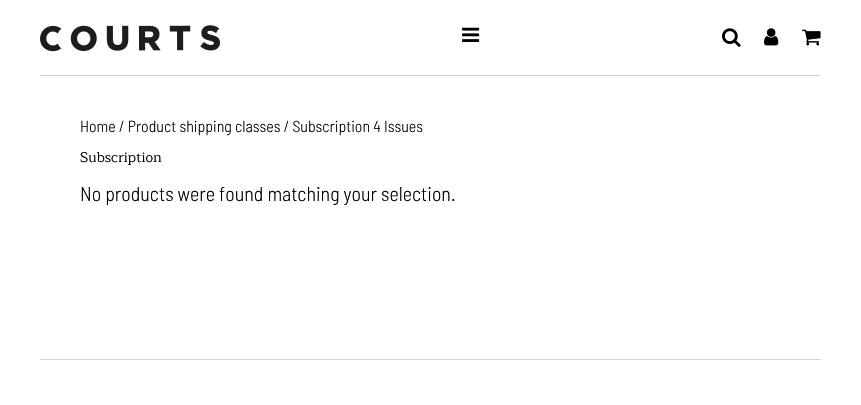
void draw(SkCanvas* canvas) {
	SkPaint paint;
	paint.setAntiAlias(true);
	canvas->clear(0xffffffff);
	canvas->drawImageRect(SkImages::DeferredFromEncodedData(SkData::MakeFromFileName("img1.png")), SkRect::MakeXYWH(40, 25, 180, 27), SkSamplingOptions());
	canvas->drawImageRect(SkImages::DeferredFromEncodedData(SkData::MakeFromFileName("img2.png")), SkRect::MakeXYWH(462, 27, 18, 15), SkSamplingOptions());
	canvas->drawImageRect(SkImages::DeferredFromEncodedData(SkData::MakeFromFileName("img3.png")), SkRect::MakeXYWH(722, 28, 19, 19), SkSamplingOptions());
	canvas->drawImageRect(SkImages::DeferredFromEncodedData(SkData::MakeFromFileName("img4.png")), SkRect::MakeXYWH(764, 28, 15, 18), SkSamplingOptions());
	canvas->drawImageRect(SkImages::DeferredFromEncodedData(SkData::MakeFromFileName("img5.png")), SkRect::MakeXYWH(802, 29, 19, 17), SkSamplingOptions());
	paint.setColor(0xffd3d3d3);
	canvas->drawRect(SkRect::MakeXYWH(40, 75, 781, 1), paint);
	SkFont f1(fontMgr->matchFamilyStyle("Barlow Semi Condensed", SkFontStyle(300, SkFontStyle::kNormal_Width, SkFontStyle::kUpright_Slant)), 16);
	f1.setSubpixel(true);
	paint.setColor(0xff000000);
	canvas->drawString("Home / Product shipping classes / Subscription 4 Issues", 80, 132, f1, paint);
	SkFont f2(fontMgr->matchFamilyStyle("Maitree", SkFontStyle::Normal()), 14);
	f2.setSubpixel(true);
	canvas->drawString("Subscription", 80, 162, f2, paint);
	SkFont f3(fontMgr->matchFamilyStyle("Barlow Semi Condensed", SkFontStyle(300, SkFontStyle::kNormal_Width, SkFontStyle::kUpright_Slant)), 20);
	f3.setSubpixel(true);
	canvas->drawString("No products were found matching your selection.", 80, 201, f3, paint);
	paint.setColor(0xffd3d3d3);
	canvas->drawRect(SkRect::MakeXYWH(40, 359, 781, 1), paint);
}
